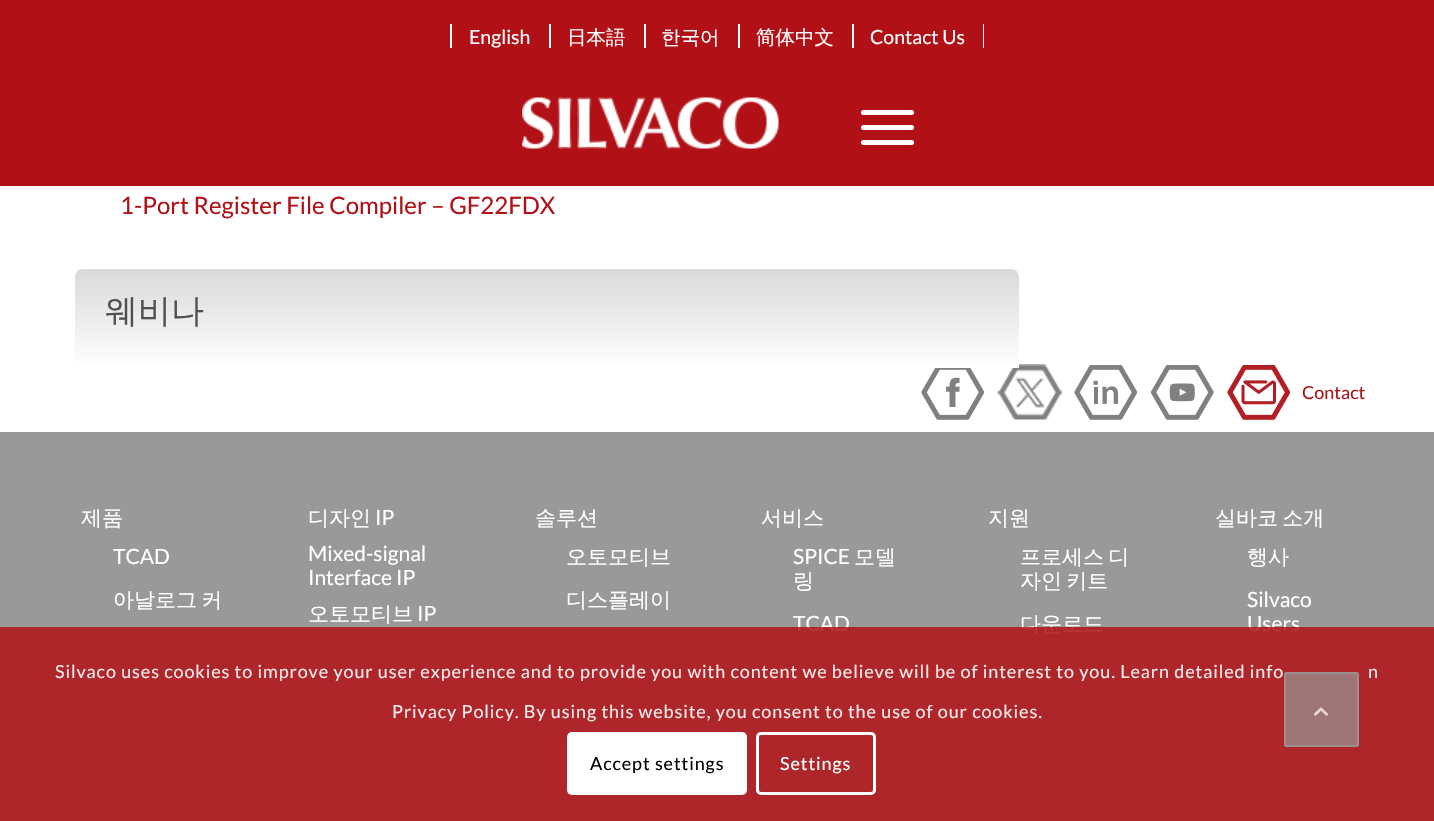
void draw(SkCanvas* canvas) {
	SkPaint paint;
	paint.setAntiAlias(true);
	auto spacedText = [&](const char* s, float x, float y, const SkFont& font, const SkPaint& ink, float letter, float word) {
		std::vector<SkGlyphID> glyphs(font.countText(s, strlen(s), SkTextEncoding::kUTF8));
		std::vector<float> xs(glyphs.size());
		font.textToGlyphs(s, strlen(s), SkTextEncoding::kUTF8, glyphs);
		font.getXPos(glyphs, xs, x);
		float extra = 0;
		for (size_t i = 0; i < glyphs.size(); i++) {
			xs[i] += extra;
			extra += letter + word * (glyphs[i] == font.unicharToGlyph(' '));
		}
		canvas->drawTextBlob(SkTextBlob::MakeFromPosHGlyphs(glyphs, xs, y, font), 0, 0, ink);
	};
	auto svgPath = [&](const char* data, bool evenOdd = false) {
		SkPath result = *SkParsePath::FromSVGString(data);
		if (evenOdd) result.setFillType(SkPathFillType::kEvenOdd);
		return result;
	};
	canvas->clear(0xffffffff);
	paint.setColor(0xffb11116);
	canvas->drawRect(SkRect::MakeXYWH(0, 0, 1434, 186), paint);
	paint.setColor(0xffffffff);
	canvas->drawRect(SkRect::MakeXYWH(549, 24, 2, 24), paint);
	canvas->drawRect(SkRect::MakeXYWH(450, 24, 2, 24), paint);
	SkFont f1(fontMgr->matchFamilyStyle("Lato", SkFontStyle::Normal()), 19.5);
	f1.setSubpixel(true);
	canvas->drawString("English", 469, 44, f1, paint);
	canvas->drawRect(SkRect::MakeXYWH(644, 24, 2, 24), paint);
	SkFont f2(fontMgr->matchFamilyStyle("WenQuanYi Zen Hei", SkFontStyle(500, SkFontStyle::kNormal_Width, SkFontStyle::kUpright_Slant)), 19.5);
	f2.setSubpixel(true);
	canvas->drawString("日本語", 567, 44, f2, paint);
	canvas->drawRect(SkRect::MakeXYWH(738, 24, 2, 24), paint);
	canvas->drawString("한국어", 661, 44, f2, paint);
	canvas->drawRect(SkRect::MakeXYWH(852, 24, 2, 24), paint);
	canvas->drawString("简体中文", 756, 44, f2, paint);
	canvas->drawRect(SkRect::MakeXYWH(983, 24, 1, 24), paint);
	canvas->drawString("Contact Us", 870, 44, f1, paint);
	canvas->drawImageRect(SkImages::DeferredFromEncodedData(SkData::MakeFromFileName("img1.png")), SkRect::MakeXYWH(522, 97, 257, 52), SkSamplingOptions());
	canvas->drawRoundRect(SkRect::MakeXYWH(861, 125, 53, 5), 2.5, 2.5, paint);
	canvas->drawRoundRect(SkRect::MakeXYWH(861, 110, 53, 5), 2.5, 2.5, paint);
	canvas->drawRoundRect(SkRect::MakeXYWH(861, 140, 53, 5), 2.5, 2.5, paint);
	SkFont f3(fontMgr->matchFamilyStyle("Lato", SkFontStyle::Normal()), 24);
	f3.setSubpixel(true);
	paint.setColor(0xffb11116);
	canvas->drawString("1-Port Register File Compiler – GF22FDX", 120, 214, f3, paint);
	canvas->drawImageRect(SkImages::DeferredFromEncodedData(SkData::MakeFromFileName("img3.png")), SkRect::MakeXYWH(997, 364, 65, 56), SkSamplingOptions());
	{
		const SkColor colors[] = {0xffd9d9d9, 0xffffffff};
		const float stops[] = {0, 1};
		const SkPoint ends[] = {{547, 268}, {547, 368}};
		paint.setShader(SkGradientShader::MakeLinear(ends, colors, stops, 2, SkTileMode::kClamp));
		paint.setAlpha(255);
	}
	canvas->drawPath(svgPath("M83 269H1011C1015.5 269 1019 272.5 1019 277V368H75V277C75 272.5 78.5 269 83 269Z"), paint);
	SkFont f4(fontMgr->matchFamilyStyle("WenQuanYi Zen Hei", SkFontStyle(500, SkFontStyle::kNormal_Width, SkFontStyle::kUpright_Slant)), 33);
	f4.setSubpixel(true);
	paint.setShader(nullptr);
	paint.setColor(0xff515151);
	canvas->drawString("웨비나", 105, 322, f4, paint);
	canvas->drawImageRect(SkImages::DeferredFromEncodedData(SkData::MakeFromFileName("img2.png")), SkRect::MakeXYWH(921, 368, 63, 52), SkSamplingOptions());
	canvas->drawImageRect(SkImages::DeferredFromEncodedData(SkData::MakeFromFileName("img4.png")), SkRect::MakeXYWH(1074, 365, 63, 55), SkSamplingOptions());
	canvas->drawImageRect(SkImages::DeferredFromEncodedData(SkData::MakeFromFileName("img5.png")), SkRect::MakeXYWH(1151, 365, 63, 55), SkSamplingOptions());
	canvas->drawImageRect(SkImages::DeferredFromEncodedData(SkData::MakeFromFileName("img6.png")), SkRect::MakeXYWH(1227, 365, 63, 55), SkSamplingOptions());
	SkFont f5(fontMgr->matchFamilyStyle("Lato", SkFontStyle::Normal()), 18);
	f5.setSubpixel(true);
	paint.setColor(0xffb11116);
	canvas->drawString("Contact", 1302, 399, f5, paint);
	paint.setColor(0xff999999);
	canvas->drawRect(SkRect::MakeXYWH(0, 432, 1434, 389), paint);
	SkFont f6(fontMgr->matchFamilyStyle("WenQuanYi Zen Hei", SkFontStyle(500, SkFontStyle::kNormal_Width, SkFontStyle::kUpright_Slant)), 21);
	f6.setSubpixel(true);
	paint.setColor(0xffffffff);
	canvas->drawString("제품", 81, 525, f6, paint);
	SkFont f7(fontMgr->matchFamilyStyle("Lato", SkFontStyle::Normal()), 21);
	f7.setSubpixel(true);
	canvas->drawString("TCAD", 113, 564, f7, paint);
	spacedText("아날로그 커", 113, 607, f6, paint, 0, -2);
	canvas->drawString("디자인", 308, 525, f6, paint);
	canvas->drawString("IP", 375, 525, f7, paint);
	canvas->drawString("Mixed-signal", 308, 561, f7, paint);
	canvas->drawString("Interface IP", 308, 585, f7, paint);
	canvas->drawString("오토모티브", 308, 621, f6, paint);
	canvas->drawString("IP", 417, 621, f7, paint);
	canvas->drawString("솔루션", 535, 525, f6, paint);
	canvas->drawString("오토모티브", 566, 564, f6, paint);
	canvas->drawString("디스플레이", 566, 607, f6, paint);
	canvas->drawString("서비스", 761, 525, f6, paint);
	canvas->drawString("SPICE", 793, 564, f7, paint);
	canvas->drawString("모델", 854, 564, f6, paint);
	canvas->drawString("링", 793, 588, f6, paint);
	canvas->drawString("TCAD", 793, 631, f7, paint);
	canvas->drawString("지원", 988, 525, f6, paint);
	spacedText("프로세스 디", 1020, 564, f6, paint, 0, -2);
	spacedText("자인 키트", 1020, 588, f6, paint, 0, -2);
	canvas->drawString("다운로드", 1020, 631, f6, paint);
	spacedText("실바코 소개", 1215, 525, f6, paint, 0, -2);
	canvas->drawString("행사", 1247, 564, f6, paint);
	canvas->drawString("Silvaco", 1247, 607, f7, paint);
	canvas->drawString("Users", 1247, 631, f7, paint);
	paint.setColor(0xd9b11116);
	canvas->drawRect(SkRect::MakeXYWH(0, 627, 1434, 194), paint);
	paint.setColor(0xfff7e9ea);
	spacedText("Silvaco uses cookies to improve your user experience and to provide you with content we believe will be of interest to you. Learn detailed info", 55, 678, f5, paint, 0.9, 0);
	spacedText("n", 1368, 678, f5, paint, 0.9, 0);
	spacedText("Privacy Policy. By using this website, you consent to the use of our cookies.", 392, 718, f5, paint, 0.9, 0);
	paint.setColor(0xffffffff);
	canvas->drawRoundRect(SkRect::MakeXYWH(567, 732, 180, 63), 5, 5, paint);
	paint.setColor(0xff000000);
	spacedText("Accept settings", 590, 770, f5, paint, 0.9, 0);
	paint.setStroke(true);
	paint.setStrokeWidth(3);
	paint.setColor(0xffffffff);
	canvas->drawRoundRect(SkRect::MakeXYWH(757.5, 733.5, 117, 60), 3.5, 3.5, paint);
	paint.setStroke(false);
	spacedText("Settings", 780, 770, f5, paint, 0.9, 0);
	paint.setColor(0xb3999999);
	canvas->drawRoundRect(SkRect::MakeXYWH(1284, 672, 75, 75), 3, 3, paint);
	paint.setStroke(true);
	paint.setStrokeWidth(2);
	canvas->drawRoundRect(SkRect::MakeXYWH(1285, 673, 73, 73), 2, 2, paint);
	canvas->drawImageRect(SkImages::DeferredFromEncodedData(SkData::MakeFromFileName("img7.png")), SkRect::MakeXYWH(1314, 707, 14, 9), SkSamplingOptions());
}
